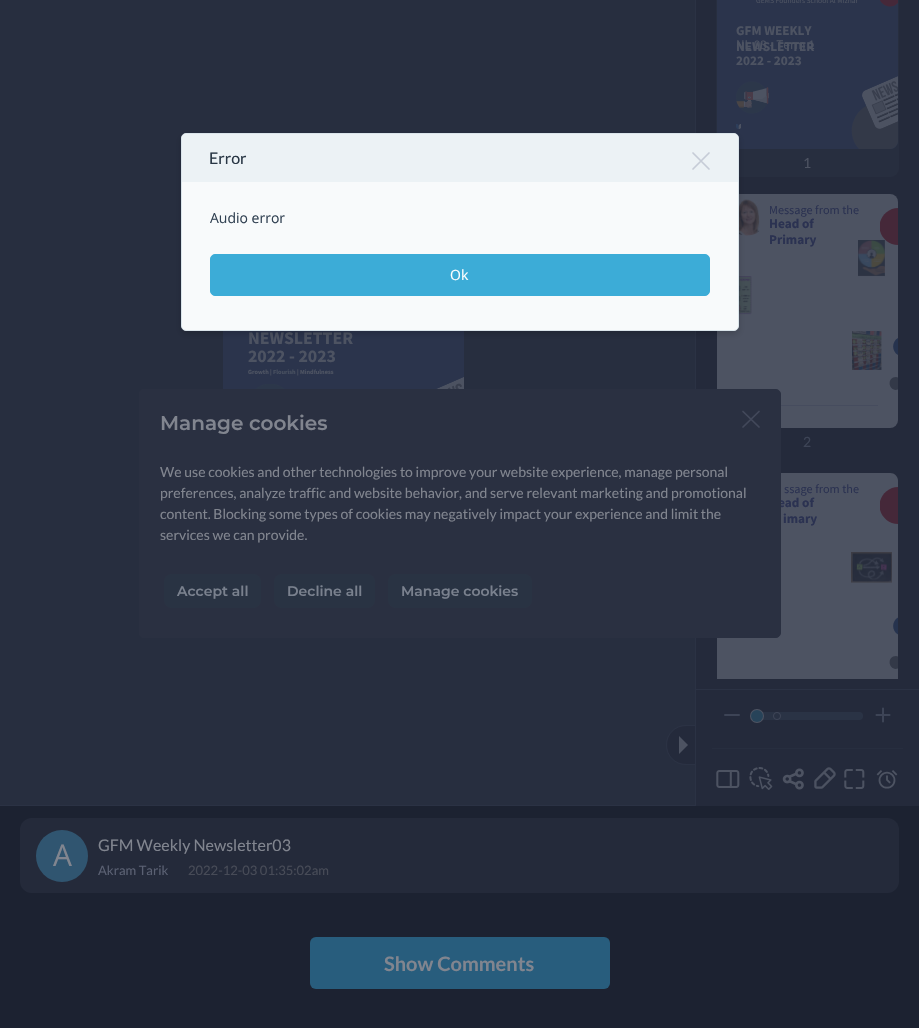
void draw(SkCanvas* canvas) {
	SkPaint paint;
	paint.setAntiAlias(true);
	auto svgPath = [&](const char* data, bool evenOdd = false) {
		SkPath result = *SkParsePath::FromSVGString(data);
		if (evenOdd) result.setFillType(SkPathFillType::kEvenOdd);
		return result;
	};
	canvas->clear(0xff272e3f);
	paint.setColor(0xff2b344c);
	canvas->drawRect(SkRect::MakeXYWH(223, 331, 241, 58), paint);
	SkFont f1(fontMgr->matchFamilyStyle("Source Sans Pro", SkFontStyle::Bold()), 17.75);
	f1.setSubpixel(true);
	paint.setColor(0xff4d5362);
	canvas->drawString("NEWSLETTER", 248, 344, f1, paint);
	canvas->drawString("2022 - 2023", 248, 362, f1, paint);
	SkFont f2(fontMgr->matchFamilyStyle("Source Sans Pro", SkFontStyle::Bold()), 6.25);
	f2.setSubpixel(true);
	canvas->drawString("Growth |", 248, 374, f2, paint);
	paint.setColor(0xff474f5f);
	canvas->drawString("Flourish", 273, 374, f2, paint);
	paint.setColor(0xff4d5362);
	canvas->drawString("|", 297, 374, f2, paint);
	canvas->drawString("Mindfulness", 300, 374, f2, paint);
	canvas->drawImageRect(SkImages::DeferredFromEncodedData(SkData::MakeFromFileName("img1.png")), SkRect::MakeXYWH(255, 384, 30, 5), SkSamplingOptions());
	canvas->drawImageRect(SkImages::DeferredFromEncodedData(SkData::MakeFromFileName("img2.png")), SkRect::MakeXYWH(436, 377, 28, 12), SkSamplingOptions());
	paint.setColor(0xff242a3b);
	canvas->drawPath(svgPath("M686 725.5H705.5V764.5H686C675 764.5 666.5 756 666.5 745C666.5 734 675 725.5 686 725.5Z"), paint);
	paint.setStroke(true);
	paint.setStrokeWidth(1);
	paint.setColor(0xff2b3244);
	canvas->drawPath(svgPath("M686 725.5H705.5V764.5H686C675 764.5 666.5 756 666.5 745C666.5 734 675 725.5 686 725.5Z"), paint);
	paint.setStroke(false);
	paint.setColor(0xff242a3b);
	canvas->drawRect(SkRect::MakeXYWH(696, 0, 223, 806), paint);
	paint.setColor(0xff2b3244);
	canvas->drawRect(SkRect::MakeXYWH(695, 0, 1, 806), paint);
	paint.setColor(0xff272e3f);
	canvas->drawRoundRect(SkRect::MakeXYWH(716, -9, 183, 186), 9, 9, paint);
	paint.setColor(0xff2b344c);
	canvas->drawRoundRect(SkRect::MakeXYWH(717, -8, 181, 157), 8, 8, paint);
	SkFont f3(fontMgr->matchFamilyStyle("Source Sans Pro", SkFontStyle::Normal()), 7.5);
	f3.setSubpixel(true);
	paint.setColor(0xff4d5362);
	canvas->drawString("GEMS Founders School Al Mizhar", 756, 3, f3, paint);
	paint.setColor(0xff452839);
	canvas->drawPath(svgPath("M890-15.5C893-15.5 896-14 898-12V3C888 13.5 871.5-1.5 882-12.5C884.5-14.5 887-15.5 890-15.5Z"), paint);
	SkFont f4(fontMgr->matchFamilyStyle("Source Sans Pro", SkFontStyle::Bold()), 13.25);
	f4.setSubpixel(true);
	paint.setColor(0xff4d5362);
	canvas->drawString("GFM WEEKLY", 736, 35, f4, paint);
	canvas->drawString("NEWSLETTER", 736, 51, f4, paint);
	SkFont f5(fontMgr->matchFamilyStyle("Source Sans Pro", SkFontStyle::Normal()), 13.25);
	f5.setSubpixel(true);
	canvas->drawString("NL 03 - Term 1", 736, 49, f5, paint);
	canvas->drawString("2022 - 2023", 736, 65, f4, paint);
	canvas->drawImageRect(SkImages::DeferredFromEncodedData(SkData::MakeFromFileName("img3.png")), SkRect::MakeXYWH(736, 81, 33, 33), SkSamplingOptions());
	paint.setColor(0xff333948);
	canvas->drawPath(svgPath("M879 103C886 103 893 106 898 111V141C898 145 894 149 890 149H859C843 132 855 103 879 103Z"), paint);
	canvas->drawImageRect(SkImages::DeferredFromEncodedData(SkData::MakeFromFileName("img4.png")), SkRect::MakeXYWH(862, 76, 36, 53), SkSamplingOptions());
	canvas->drawImageRect(SkImages::DeferredFromEncodedData(SkData::MakeFromFileName("img5.png")), SkRect::MakeXYWH(736, 124, 5, 5), SkSamplingOptions());
	SkFont f6(fontMgr->matchFamilyStyle("Lato", SkFontStyle::Normal()), 14);
	f6.setSubpixel(true);
	paint.setColor(0xff4d5362);
	canvas->drawString("1", 803, 168, f6, paint);
	canvas->drawRoundRect(SkRect::MakeXYWH(717, 194, 181, 234), 8, 8, paint);
	canvas->drawImageRect(SkImages::DeferredFromEncodedData(SkData::MakeFromFileName("img6.png")), SkRect::MakeXYWH(739, 199, 21, 37), SkSamplingOptions());
	SkFont f7(fontMgr->matchFamilyStyle("Source Sans Pro", SkFontStyle::Normal()), 12.25);
	f7.setSubpixel(true);
	paint.setColor(0xff2b3251);
	canvas->drawString("Message from the", 769, 214, f7, paint);
	canvas->save();
	canvas->clipRect(SkRect::MakeXYWH(880, 208, 36, 37));
	paint.setColor(0xff452839);
	canvas->drawPath(svgPath("M898 208C888 208 879.5 216.5 879.5 226.5C879.5 236.5 888 245 898 245Z"), paint);
	canvas->restore();
	paint.setColor(0xff2b3251);
	canvas->drawString("Head of", 769, 228, f4, paint);
	canvas->drawString("Primary", 769, 244, f4, paint);
	canvas->drawImageRect(SkImages::DeferredFromEncodedData(SkData::MakeFromFileName("img7.png")), SkRect::MakeXYWH(858, 240, 27, 37), SkSamplingOptions());
	canvas->drawImageRect(SkImages::DeferredFromEncodedData(SkData::MakeFromFileName("img8.png")), SkRect::MakeXYWH(739, 276, 13, 39), SkSamplingOptions());
	canvas->drawImageRect(SkImages::DeferredFromEncodedData(SkData::MakeFromFileName("img9.png")), SkRect::MakeXYWH(852, 331, 30, 39), SkSamplingOptions());
	paint.setColor(0xff26334e);
	canvas->drawPath(svgPath("M898 338V355C891.5 351.5 891.5 341.5 898 338Z"), paint);
	paint.setColor(0xff333948);
	canvas->drawPath(svgPath("M896 377L898 377.5V389.5C888.5 392.5 886 377 896 377Z"), paint);
	paint.setColor(0xff464c5e);
	canvas->drawRect(SkRect::MakeXYWH(781, 405, 97, 1), paint);
	paint.setColor(0xff3d4456);
	canvas->drawString("2", 803, 447, f6, paint);
	paint.setColor(0xff4d5362);
	canvas->drawPath(svgPath("M725 473H890C894.5 473 898 476.5 898 481V679H717V481C717 476.5 720.5 473 725 473Z"), paint);
	paint.setColor(0xff2b3251);
	canvas->drawString("ssage from the", 784, 493, f7, paint);
	canvas->save();
	canvas->clipRect(SkRect::MakeXYWH(880, 487, 36, 37));
	paint.setColor(0xff452839);
	canvas->drawPath(svgPath("M898 487C888 487 879.5 495.5 879.5 505.5C879.5 515.5 888 524 898 524Z"), paint);
	canvas->restore();
	paint.setColor(0xff2b3251);
	canvas->drawString("ead of", 778, 507, f4, paint);
	canvas->drawString("imary", 783, 523, f4, paint);
	canvas->drawImageRect(SkImages::DeferredFromEncodedData(SkData::MakeFromFileName("img10.png")), SkRect::MakeXYWH(851, 552, 41, 31), SkSamplingOptions());
	paint.setColor(0xff26334e);
	canvas->drawPath(svgPath("M898 617.5V634.5C891.5 631 891.5 621 898 617.5Z"), paint);
	paint.setColor(0xff333948);
	canvas->drawPath(svgPath("M896 656L898 656.5V668.5C888.5 671.5 886 656 896 656Z"), paint);
	paint.setColor(0xff2b3244);
	canvas->drawRect(SkRect::MakeXYWH(696, 689, 223, 1), paint);
	canvas->drawImageRect(SkImages::DeferredFromEncodedData(SkData::MakeFromFileName("img11.png")), SkRect::MakeXYWH(724, 714, 16, 2), SkSamplingOptions());
	paint.setColor(0xff2a3345);
	canvas->drawRoundRect(SkRect::MakeXYWH(752, 712, 111, 8), 4, 4, paint);
	paint.setColor(0xff4d5362);
	canvas->drawCircle(757, 716, 7, paint);
	paint.setColor(0xff274359);
	canvas->drawCircle(757, 716, 6, paint);
	canvas->drawImageRect(SkImages::DeferredFromEncodedData(SkData::MakeFromFileName("img12.png")), SkRect::MakeXYWH(773, 712, 8, 8), SkSamplingOptions());
	canvas->drawImageRect(SkImages::DeferredFromEncodedData(SkData::MakeFromFileName("img13.png")), SkRect::MakeXYWH(875, 707, 16, 16), SkSamplingOptions());
	paint.setColor(0xff272e3f);
	canvas->drawRect(SkRect::MakeXYWH(712, 748, 191, 1), paint);
	canvas->drawImageRect(SkImages::DeferredFromEncodedData(SkData::MakeFromFileName("img14.png")), SkRect::MakeXYWH(716, 770, 24, 18), SkSamplingOptions());
	canvas->drawImageRect(SkImages::DeferredFromEncodedData(SkData::MakeFromFileName("img15.png")), SkRect::MakeXYWH(749, 767, 24, 23), SkSamplingOptions());
	canvas->drawImageRect(SkImages::DeferredFromEncodedData(SkData::MakeFromFileName("img16.png")), SkRect::MakeXYWH(782, 768, 22, 22), SkSamplingOptions());
	canvas->drawImageRect(SkImages::DeferredFromEncodedData(SkData::MakeFromFileName("img17.png")), SkRect::MakeXYWH(814, 767, 22, 22), SkSamplingOptions());
	canvas->drawImageRect(SkImages::DeferredFromEncodedData(SkData::MakeFromFileName("img18.png")), SkRect::MakeXYWH(844, 769, 21, 20), SkSamplingOptions());
	canvas->drawImageRect(SkImages::DeferredFromEncodedData(SkData::MakeFromFileName("img19.png")), SkRect::MakeXYWH(876, 770, 22, 19), SkSamplingOptions());
	paint.setColor(0xff4d5362);
	canvas->drawPath(svgPath("M679 754V736L688 745Z"), paint);
	paint.setColor(0xff2b3244);
	canvas->drawRect(SkRect::MakeXYWH(0, 805, 695, 1), paint);
	paint.setColor(0xff1c2231);
	canvas->drawRect(SkRect::MakeXYWH(0, 806, 919, 222), paint);
	paint.setColor(0xff242a3a);
	canvas->drawRoundRect(SkRect::MakeXYWH(20, 818, 879, 75), 12, 12, paint);
	paint.setColor(0xff305570);
	canvas->drawCircle(62, 856, 26, paint);
	SkFont f8(fontMgr->matchFamilyStyle("Open Sans", SkFontStyle::Normal()), 30);
	f8.setSubpixel(true);
	paint.setColor(0xff81858f);
	canvas->drawString("A", 53, 866, f8, paint);
	SkFont f9(fontMgr->matchFamilyStyle("Lato", SkFontStyle::Normal()), 16);
	f9.setSubpixel(true);
	canvas->drawString("GFM Weekly Newsletter03", 98, 851, f9, paint);
	SkFont f10(fontMgr->matchFamilyStyle("Lato", SkFontStyle::Normal()), 13);
	f10.setSubpixel(true);
	paint.setColor(0xff5a6072);
	canvas->drawString("Akram Tarik", 98, 875, f10, paint);
	paint.setColor(0xff474b57);
	canvas->drawString("2022-12-03 01:35:02am", 188, 875, f10, paint);
	paint.setColor(0xff285d7d);
	canvas->drawRoundRect(SkRect::MakeXYWH(310, 937, 300, 52), 6, 6, paint);
	SkFont f11(fontMgr->matchFamilyStyle("Lato", SkFontStyle::Bold()), 20);
	f11.setSubpixel(true);
	paint.setColor(0xff81858f);
	canvas->drawString("Show Comments", 384, 971, f11, paint);
	paint.setColor(0x29000000);
	paint.setMaskFilter(SkMaskFilter::MakeBlur(kNormal_SkBlurStyle, 3));
	canvas->drawRoundRect(SkRect::MakeXYWH(181, 136, 558, 198), 5, 5, paint);
	paint.setMaskFilter(nullptr);
	paint.setColor(0xfff8fafb);
	canvas->drawRoundRect(SkRect::MakeXYWH(181.5, 133.5, 557, 197), 4.5, 4.5, paint);
	paint.setStroke(true);
	paint.setColor(0xffdae4ea);
	canvas->drawRoundRect(SkRect::MakeXYWH(181.5, 133.5, 557, 197), 4.5, 4.5, paint);
	paint.setStroke(false);
	paint.setColor(0xffecf2f5);
	canvas->drawPath(svgPath("M186 134H734C736 134 738 136 738 138V182H182V138C182 136 184 134 186 134Z"), paint);
	paint.setColor(0xff293745);
	canvas->drawString("Error", 209, 164, f9, paint);
	paint.setStroke(true);
	paint.setStrokeWidth(1.7);
	paint.setStrokeCap(SkPaint::kRound_Cap);
	paint.setColor(0xffc6ccd7);
	canvas->drawPath(svgPath("M693 153L709 169M693 169L709 153"), paint);
	SkFont f12(fontMgr->matchFamilyStyle("Open Sans", SkFontStyle::Normal()), 14);
	f12.setSubpixel(true);
	paint.setStroke(false);
	paint.setColor(0xff314152);
	canvas->drawString("Audio error", 210, 223, f12, paint);
	paint.setColor(0xff3cacd7);
	canvas->drawRoundRect(SkRect::MakeXYWH(210.5, 254.5, 499, 41), 4.5, 4.5, paint);
	paint.setStroke(true);
	paint.setStrokeWidth(1);
	paint.setStrokeCap(SkPaint::kButt_Cap);
	canvas->drawRoundRect(SkRect::MakeXYWH(210.5, 254.5, 499, 41), 4.5, 4.5, paint);
	paint.setStroke(false);
	paint.setColor(0xffffffff);
	canvas->drawString("Ok", 450, 280, f12, paint);
	paint.setColor(0xff2a3041);
	canvas->drawRoundRect(SkRect::MakeXYWH(139.5, 389.5, 641, 248), 4.5, 4.5, paint);
	paint.setStroke(true);
	canvas->drawRoundRect(SkRect::MakeXYWH(139.5, 389.5, 641, 248), 4.5, 4.5, paint);
	SkFont f13(fontMgr->matchFamilyStyle("Montserrat", SkFontStyle(600, SkFontStyle::kNormal_Width, SkFontStyle::kUpright_Slant)), 20);
	f13.setSubpixel(true);
	paint.setStroke(false);
	paint.setColor(0xff81858f);
	canvas->drawString("Manage cookies", 160, 430, f13, paint);
	paint.setStroke(true);
	paint.setStrokeWidth(1.7);
	paint.setStrokeCap(SkPaint::kRound_Cap);
	paint.setColor(0xff42485a);
	canvas->drawPath(svgPath("M743 411.5L759 427M743 427L759 411.5"), paint);
	paint.setStroke(false);
	paint.setColor(0xff81858f);
	canvas->drawString("We use cookies and other technologies to improve your website experience, manage personal", 160, 477, f6, paint);
	canvas->drawString("preferences, analyze traffic and website behavior, and serve relevant marketing and promotional", 160, 498, f6, paint);
	canvas->drawString("content. Blocking some types of cookies may negatively impact your experience and limit the", 160, 519, f6, paint);
	canvas->drawString("services we can provide.", 160, 540, f6, paint);
	paint.setColor(0xff293343);
	canvas->drawRoundRect(SkRect::MakeXYWH(164, 574, 97, 34), 8, 8, paint);
	SkFont f14(fontMgr->matchFamilyStyle("Montserrat", SkFontStyle(600, SkFontStyle::kNormal_Width, SkFontStyle::kUpright_Slant)), 14);
	f14.setSubpixel(true);
	paint.setColor(0xff7a818e);
	canvas->drawString("Accept all", 177, 596, f14, paint);
	paint.setColor(0xff293343);
	canvas->drawRoundRect(SkRect::MakeXYWH(274, 574, 101, 34), 8, 8, paint);
	paint.setColor(0xff7a818e);
	canvas->drawString("Decline all", 287, 596, f14, paint);
	paint.setColor(0xff293343);
	canvas->drawRoundRect(SkRect::MakeXYWH(388, 574, 144, 34), 8, 8, paint);
	paint.setColor(0xff7a818e);
	canvas->drawString("Manage cookies", 401, 596, f14, paint);
}
